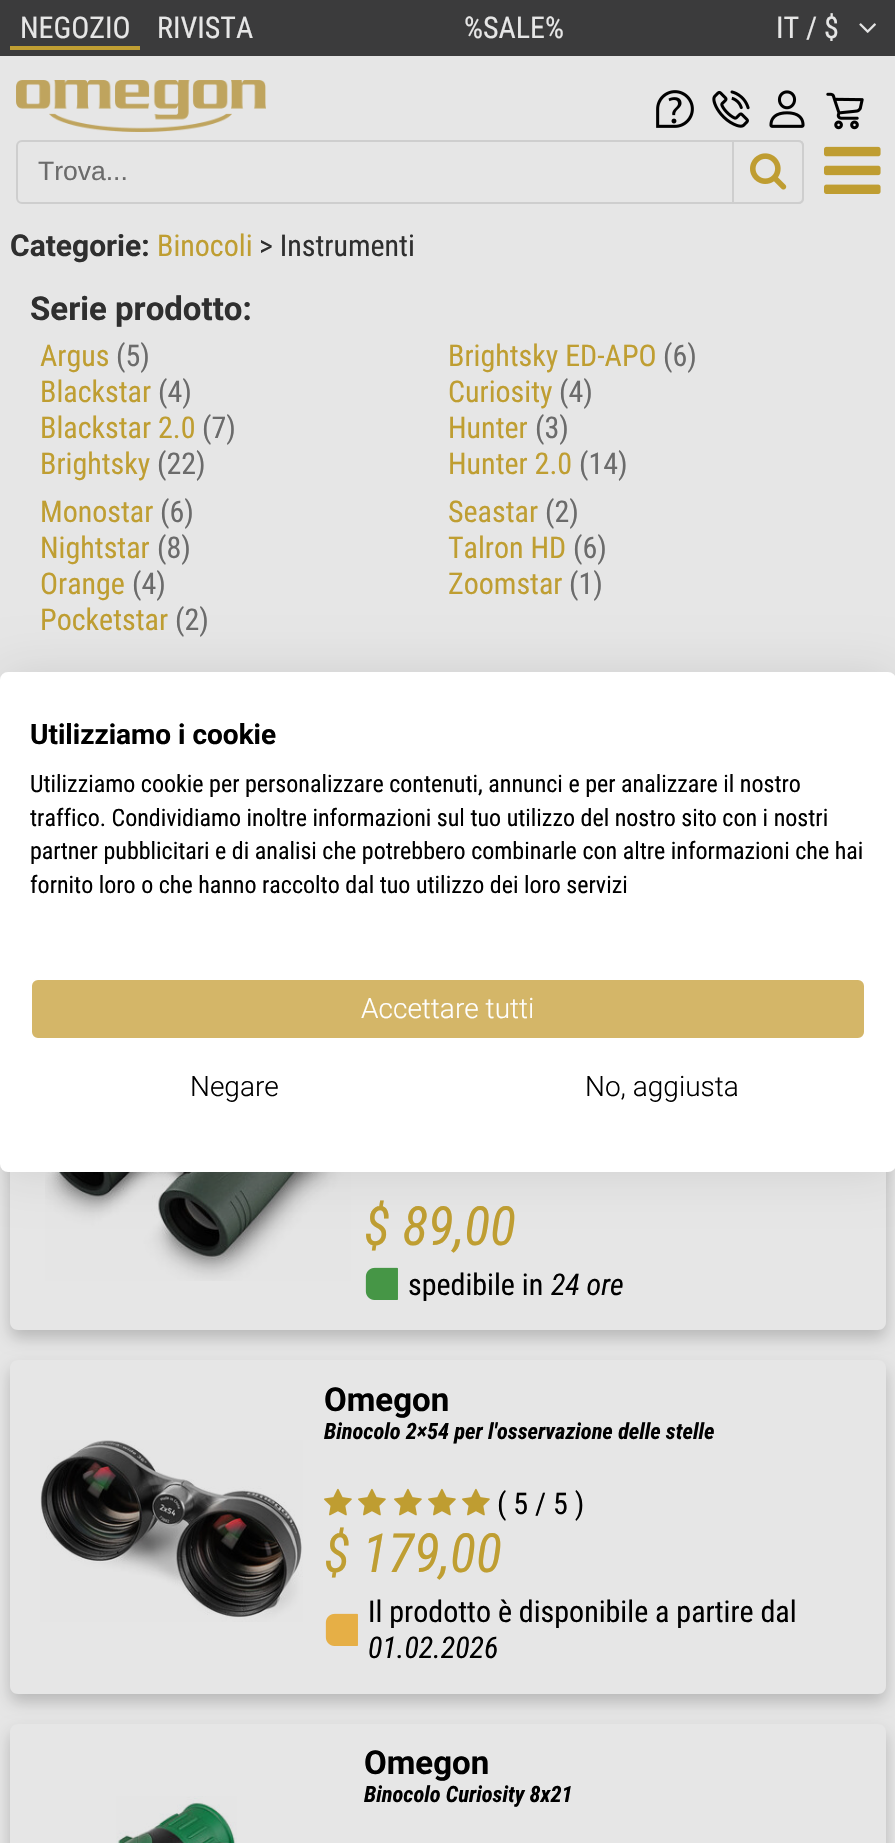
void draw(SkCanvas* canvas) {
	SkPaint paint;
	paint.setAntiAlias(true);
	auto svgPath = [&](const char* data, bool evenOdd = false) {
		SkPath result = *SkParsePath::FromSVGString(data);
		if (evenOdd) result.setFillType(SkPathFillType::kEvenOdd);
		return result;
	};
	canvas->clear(0xffe6e6e6);
	paint.setColor(0xff3b3b3c);
	canvas->drawRect(SkRect::MakeXYWH(0, 0, 895, 56), paint);
	SkFont f1(fontMgr->matchFamilyStyle("Roboto Condensed", SkFontStyle::Normal()), 30);
	f1.setSubpixel(true);
	paint.setColor(0xffe6e6e6);
	canvas->drawString("NEGOZIO", 20, 38, f1, paint);
	paint.setColor(0xffbf9e32);
	canvas->drawRect(SkRect::MakeXYWH(10, 46, 130, 4), paint);
	paint.setColor(0xffe6e6e6);
	canvas->drawString("RIVISTA", 157, 38, f1, paint);
	canvas->drawString("%SALE%", 464, 38, f1, paint);
	canvas->drawString("IT / $", 776, 38, f1, paint);
	canvas->drawImageRect(SkImages::DeferredFromEncodedData(SkData::MakeFromFileName("img1.png")), SkRect::MakeXYWH(859, 23, 17, 10), SkSamplingOptions());
	canvas->drawImageRect(SkImages::DeferredFromEncodedData(SkData::MakeFromFileName("img2.png")), SkRect::MakeXYWH(16, 80, 250, 52), SkSamplingOptions());
	canvas->drawImageRect(SkImages::DeferredFromEncodedData(SkData::MakeFromFileName("img3.png")), SkRect::MakeXYWH(656, 90, 38, 38), SkSamplingOptions());
	canvas->drawImageRect(SkImages::DeferredFromEncodedData(SkData::MakeFromFileName("img4.png")), SkRect::MakeXYWH(712, 90, 38, 38), SkSamplingOptions());
	canvas->drawImageRect(SkImages::DeferredFromEncodedData(SkData::MakeFromFileName("img5.png")), SkRect::MakeXYWH(769, 90, 36, 38), SkSamplingOptions());
	canvas->drawImageRect(SkImages::DeferredFromEncodedData(SkData::MakeFromFileName("img6.png")), SkRect::MakeXYWH(826, 92, 38, 38), SkSamplingOptions());
	paint.setStroke(true);
	paint.setStrokeWidth(2);
	paint.setColor(0xffcecece);
	canvas->drawRoundRect(SkRect::MakeXYWH(17, 141, 786, 62), 5, 5, paint);
	SkFont f2(fontMgr->matchFamilyStyle("Liberation Sans", SkFontStyle::Normal()), 26.5);
	f2.setSubpixel(true);
	paint.setStroke(false);
	paint.setColor(0xff6b6b6b);
	canvas->drawString("Trova...", 38, 180, f2, paint);
	paint.setColor(0xffe6e6e6);
	canvas->drawPath(svgPath("M733 141H798C801 141 803 143 803 146V198C803 201 801 203 798 203H733Z"), paint);
	paint.setStroke(true);
	paint.setColor(0xffcecece);
	canvas->drawPath(svgPath("M733 141H798C801 141 803 143 803 146V198C803 201 801 203 798 203H733Z"), paint);
	canvas->drawImageRect(SkImages::DeferredFromEncodedData(SkData::MakeFromFileName("img7.png")), SkRect::MakeXYWH(750, 153, 37, 37), SkSamplingOptions());
	canvas->drawImageRect(SkImages::DeferredFromEncodedData(SkData::MakeFromFileName("img8.png")), SkRect::MakeXYWH(824, 146, 57, 48), SkSamplingOptions());
	SkFont f3(fontMgr->matchFamilyStyle("Roboto", SkFontStyle::Bold()), 30);
	f3.setSubpixel(true);
	paint.setStroke(false);
	paint.setColor(0xff2f2f2f);
	canvas->drawString("Categorie:", 10, 256, f3, paint);
	paint.setColor(0xffbf9e32);
	canvas->drawString("Binocoli", 157, 256, f1, paint);
	paint.setColor(0xff2f2f2f);
	canvas->drawString("> Instrumenti", 259, 256, f1, paint);
	SkFont f4(fontMgr->matchFamilyStyle("Roboto", SkFontStyle::Bold()), 33);
	f4.setSubpixel(true);
	canvas->drawString("Serie prodotto:", 30, 320, f4, paint);
	paint.setColor(0xffbf9e32);
	canvas->drawString("Argus", 40, 366, f1, paint);
	paint.setColor(0xff6b6b6b);
	canvas->drawString("(5)", 116, 366, f1, paint);
	paint.setColor(0xffbf9e32);
	canvas->drawString("Blackstar", 40, 402, f1, paint);
	paint.setColor(0xff6b6b6b);
	canvas->drawString("(4)", 158, 402, f1, paint);
	paint.setColor(0xffbf9e32);
	canvas->drawString("Blackstar 2.0", 40, 438, f1, paint);
	paint.setColor(0xff6b6b6b);
	canvas->drawString("(7)", 202, 438, f1, paint);
	paint.setColor(0xffbf9e32);
	canvas->drawString("Brightsky", 40, 474, f1, paint);
	paint.setColor(0xff6b6b6b);
	canvas->drawString("(22)", 157, 474, f1, paint);
	paint.setColor(0xffbf9e32);
	canvas->drawString("Brightsky ED-APO", 448, 366, f1, paint);
	paint.setColor(0xff6b6b6b);
	canvas->drawString("(6)", 663, 366, f1, paint);
	paint.setColor(0xffbf9e32);
	canvas->drawString("Curiosity", 448, 402, f1, paint);
	paint.setColor(0xff6b6b6b);
	canvas->drawString("(4)", 559, 402, f1, paint);
	paint.setColor(0xffbf9e32);
	canvas->drawString("Hunter", 448, 438, f1, paint);
	paint.setColor(0xff6b6b6b);
	canvas->drawString("(3)", 535, 438, f1, paint);
	paint.setColor(0xffbf9e32);
	canvas->drawString("Hunter 2.0", 448, 474, f1, paint);
	paint.setColor(0xff6b6b6b);
	canvas->drawString("(14)", 579, 474, f1, paint);
	paint.setColor(0xffbf9e32);
	canvas->drawString("Monostar", 40, 522, f1, paint);
	paint.setColor(0xff6b6b6b);
	canvas->drawString("(6)", 160, 522, f1, paint);
	paint.setColor(0xffbf9e32);
	canvas->drawString("Nightstar", 40, 558, f1, paint);
	paint.setColor(0xff6b6b6b);
	canvas->drawString("(8)", 157, 558, f1, paint);
	paint.setColor(0xffbf9e32);
	canvas->drawString("Orange", 40, 594, f1, paint);
	paint.setColor(0xff6b6b6b);
	canvas->drawString("(4)", 132, 594, f1, paint);
	paint.setColor(0xffbf9e32);
	canvas->drawString("Pocketstar", 40, 630, f1, paint);
	paint.setColor(0xff6b6b6b);
	canvas->drawString("(2)", 175, 630, f1, paint);
	paint.setColor(0xffbf9e32);
	canvas->drawString("Seastar", 448, 522, f1, paint);
	paint.setColor(0xff6b6b6b);
	canvas->drawString("(2)", 545, 522, f1, paint);
	paint.setColor(0xffbf9e32);
	canvas->drawString("Talron HD", 448, 558, f1, paint);
	paint.setColor(0xff6b6b6b);
	canvas->drawString("(6)", 573, 558, f1, paint);
	paint.setColor(0xffbf9e32);
	canvas->drawString("Zoomstar", 448, 594, f1, paint);
	paint.setColor(0xff6b6b6b);
	canvas->drawString("(1)", 569, 594, f1, paint);
	canvas->save();
	canvas->clipPath(svgPath("M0 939H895V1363H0ZM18 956H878C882.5 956 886 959.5 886 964V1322C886 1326.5 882.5 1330 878 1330H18C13.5 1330 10 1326.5 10 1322V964C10 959.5 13.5 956 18 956Z", true), true);
	paint.setColor(0x33000000);
	paint.setMaskFilter(SkMaskFilter::MakeBlur(kNormal_SkBlurStyle, 8));
	canvas->drawRoundRect(SkRect::MakeXYWH(10, 964, 876, 374), 8, 8, paint);
	paint.setMaskFilter(nullptr);
	canvas->restore();
	canvas->drawImageRect(SkImages::DeferredFromEncodedData(SkData::MakeFromFileName("img9.png")), SkRect::MakeXYWH(45, 1172, 306, 109), SkSamplingOptions());
	SkFont f5(fontMgr->matchFamilyStyle("Roboto Condensed", SkFontStyle::Italic()), 54);
	f5.setSubpixel(true);
	paint.setColor(0xffbf9e32);
	canvas->drawString("$ 89,00", 364, 1245, f5, paint);
	canvas->drawImageRect(SkImages::DeferredFromEncodedData(SkData::MakeFromFileName("img10.png")), SkRect::MakeXYWH(365, 1267, 33, 33), SkSamplingOptions());
	paint.setColor(0xff000000);
	canvas->drawString("spedibile in", 408, 1295, f1, paint);
	SkFont f6(fontMgr->matchFamilyStyle("Roboto Condensed", SkFontStyle::Italic()), 30);
	f6.setSubpixel(true);
	canvas->drawString("24 ore", 551, 1295, f6, paint);
	canvas->save();
	canvas->clipPath(svgPath("M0 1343H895V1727H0ZM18 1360H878C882.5 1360 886 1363.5 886 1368V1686C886 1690.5 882.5 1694 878 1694H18C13.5 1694 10 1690.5 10 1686V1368C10 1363.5 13.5 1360 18 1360Z", true), true);
	paint.setColor(0x33000000);
	paint.setMaskFilter(SkMaskFilter::MakeBlur(kNormal_SkBlurStyle, 8));
	canvas->drawRoundRect(SkRect::MakeXYWH(10, 1368, 876, 334), 8, 8, paint);
	paint.setMaskFilter(nullptr);
	canvas->restore();
	canvas->drawImageRect(SkImages::DeferredFromEncodedData(SkData::MakeFromFileName("img11.png")), SkRect::MakeXYWH(40, 1440, 263, 182), SkSamplingOptions());
	paint.setColor(0xff000000);
	canvas->drawString("Omegon", 324, 1411, f4, paint);
	SkFont f7(fontMgr->matchFamilyStyle("Roboto Condensed", SkFontStyle::BoldItalic()), 22.5);
	f7.setSubpixel(true);
	canvas->drawString("Binocolo 2×54 per l'osservazione delle stelle", 324, 1439, f7, paint);
	canvas->drawImageRect(SkImages::DeferredFromEncodedData(SkData::MakeFromFileName("img12.png")), SkRect::MakeXYWH(324, 1488, 28, 28), SkSamplingOptions());
	canvas->drawImageRect(SkImages::DeferredFromEncodedData(SkData::MakeFromFileName("img12.png")), SkRect::MakeXYWH(358, 1488, 28, 28), SkSamplingOptions());
	canvas->drawImageRect(SkImages::DeferredFromEncodedData(SkData::MakeFromFileName("img12.png")), SkRect::MakeXYWH(394, 1488, 28, 28), SkSamplingOptions());
	canvas->drawImageRect(SkImages::DeferredFromEncodedData(SkData::MakeFromFileName("img12.png")), SkRect::MakeXYWH(428, 1488, 28, 28), SkSamplingOptions());
	canvas->drawImageRect(SkImages::DeferredFromEncodedData(SkData::MakeFromFileName("img12.png")), SkRect::MakeXYWH(462, 1488, 28, 28), SkSamplingOptions());
	canvas->drawString("( 5 / 5 )", 497, 1514, f1, paint);
	paint.setColor(0xffbf9e32);
	canvas->drawString("$ 179,00", 324, 1572, f5, paint);
	canvas->drawImageRect(SkImages::DeferredFromEncodedData(SkData::MakeFromFileName("img13.png")), SkRect::MakeXYWH(325, 1613, 33, 33), SkSamplingOptions());
	paint.setColor(0xff000000);
	canvas->drawString("Il prodotto è disponibile a partire dal", 368, 1622, f1, paint);
	canvas->drawString("01.02.2026", 368, 1658, f6, paint);
	canvas->save();
	canvas->clipPath(svgPath("M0 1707H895V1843H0ZM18 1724H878C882.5 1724 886 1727.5 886 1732V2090C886 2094.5 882.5 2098 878 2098H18C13.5 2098 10 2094.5 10 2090V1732C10 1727.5 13.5 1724 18 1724Z", true), true);
	paint.setColor(0x33000000);
	paint.setMaskFilter(SkMaskFilter::MakeBlur(kNormal_SkBlurStyle, 8));
	canvas->drawRoundRect(SkRect::MakeXYWH(10, 1732, 876, 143), 8, 8, paint);
	paint.setMaskFilter(nullptr);
	canvas->restore();
	paint.setColor(0xff000000);
	canvas->drawString("Omegon", 364, 1774, f4, paint);
	canvas->drawString("Binocolo Curiosity 8x21", 364, 1802, f7, paint);
	canvas->drawImageRect(SkImages::DeferredFromEncodedData(SkData::MakeFromFileName("img14.png")), SkRect::MakeXYWH(116, 1796, 121, 47), SkSamplingOptions());
	paint.setColor(0x1a000000);
	paint.setMaskFilter(SkMaskFilter::MakeBlur(kNormal_SkBlurStyle, 24));
	canvas->drawRoundRect(SkRect::MakeXYWH(0, 672, 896, 500), 8, 8, paint);
	paint.setMaskFilter(nullptr);
	paint.setColor(0xffffffff);
	canvas->drawRoundRect(SkRect::MakeXYWH(0, 672, 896, 500), 8, 8, paint);
	SkFont f8(fontMgr->matchFamilyStyle("Roboto", SkFontStyle::Bold()), 28);
	f8.setSubpixel(true);
	paint.setColor(0xff000000);
	canvas->drawString("Utilizziamo i cookie", 30, 744, f8, paint);
	SkFont f9(fontMgr->matchFamilyStyle("Roboto Condensed", SkFontStyle::Normal()), 24);
	f9.setSubpixel(true);
	canvas->drawString("Utilizziamo cookie per personalizzare contenuti, annunci e per analizzare il nostro", 30, 792, f9, paint);
	canvas->drawString("traffico. Condividiamo inoltre informazioni sul tuo utilizzo del nostro sito con i nostri", 30, 826, f9, paint);
	canvas->drawString("partner pubblicitari e di analisi che potrebbero combinarle con altre informazioni che hai", 30, 859, f9, paint);
	canvas->drawString("fornito loro o che hanno raccolto dal tuo utilizzo dei loro servizi", 30, 893, f9, paint);
	paint.setColor(0xffd4b668);
	canvas->drawRoundRect(SkRect::MakeXYWH(31, 979, 834, 60), 7, 7, paint);
	paint.setStroke(true);
	paint.setColor(0xffffffff);
	canvas->drawRoundRect(SkRect::MakeXYWH(31, 979, 834, 60), 7, 7, paint);
	SkFont f10(fontMgr->matchFamilyStyle("Roboto", SkFontStyle(300, SkFontStyle::kNormal_Width, SkFontStyle::kUpright_Slant)), 28);
	f10.setSubpixel(true);
	paint.setStroke(false);
	canvas->drawString("Accettare tutti", 361, 1018, f10, paint);
	paint.setColor(0xff000000);
	canvas->drawString("Negare", 190, 1096, f10, paint);
	canvas->drawString("No, aggiusta", 585, 1096, f10, paint);
}
